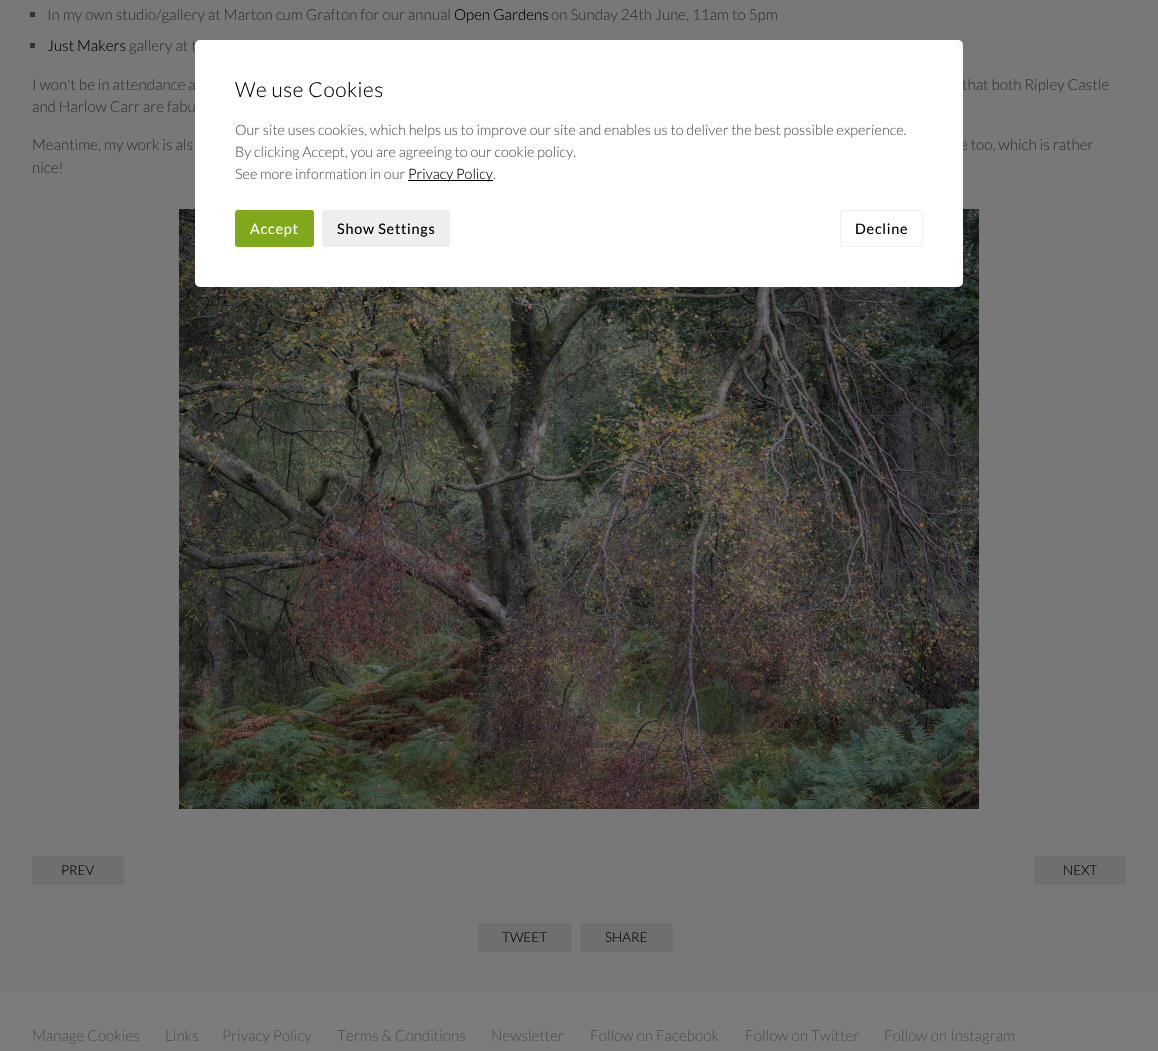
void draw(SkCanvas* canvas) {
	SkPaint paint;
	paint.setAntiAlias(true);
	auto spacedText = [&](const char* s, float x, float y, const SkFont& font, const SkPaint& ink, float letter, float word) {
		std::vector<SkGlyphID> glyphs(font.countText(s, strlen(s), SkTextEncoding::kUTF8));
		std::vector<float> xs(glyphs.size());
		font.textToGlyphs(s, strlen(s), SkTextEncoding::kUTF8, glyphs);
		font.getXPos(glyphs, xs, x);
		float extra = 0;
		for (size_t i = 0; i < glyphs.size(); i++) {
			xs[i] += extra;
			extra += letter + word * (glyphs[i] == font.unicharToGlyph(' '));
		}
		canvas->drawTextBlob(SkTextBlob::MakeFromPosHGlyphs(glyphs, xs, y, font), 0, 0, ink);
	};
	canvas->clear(0xff787878);
	paint.setColor(0xff333333);
	canvas->drawRect(SkRect::MakeXYWH(30, 12, 5, 5), paint);
	SkFont f1(fontMgr->matchFamilyStyle("Lato", SkFontStyle(300, SkFontStyle::kNormal_Width, SkFontStyle::kUpright_Slant)), 15.2);
	f1.setSubpixel(true);
	canvas->drawString("In my own studio/gallery at Marton cum Grafton for our annual", 47, 20, f1, paint);
	paint.setColor(0xff000000);
	canvas->drawString("Open Gardens", 454, 20, f1, paint);
	paint.setColor(0xff333333);
	canvas->drawString("on Sunday 24th June, 11am to 5pm", 551, 20, f1, paint);
	canvas->drawRect(SkRect::MakeXYWH(30, 43, 5, 5), paint);
	paint.setColor(0xff000000);
	canvas->drawString("Just Makers", 47, 51, f1, paint);
	paint.setColor(0xff333333);
	canvas->drawString("gallery at t", 129, 51, f1, paint);
	canvas->drawString("I won't be in attendance a", 32, 90, f1, paint);
	canvas->drawString("that both Ripley Castle", 962, 90, f1, paint);
	canvas->drawString("and Harlow Carr are fabu", 32, 112, f1, paint);
	canvas->drawString("Meantime, my work is als", 32, 150, f1, paint);
	canvas->drawString("e too, which is rather", 960, 150, f1, paint);
	canvas->drawString("nice!", 32, 173, f1, paint);
	canvas->drawImageRect(SkImages::DeferredFromEncodedData(SkData::MakeFromFileName("img1.png")), SkRect::MakeXYWH(179, 209, 800, 600), SkSamplingOptions());
	paint.setColor(0xff6f6f6f);
	canvas->drawRect(SkRect::MakeXYWH(32, 856, 92, 29), paint);
	SkFont f2(fontMgr->matchFamilyStyle("Lato", SkFontStyle(300, SkFontStyle::kNormal_Width, SkFontStyle::kUpright_Slant)), 13.5);
	f2.setSubpixel(true);
	paint.setColor(0xff000000);
	canvas->drawString("PREV", 61, 875, f2, paint);
	paint.setColor(0xff6f6f6f);
	canvas->drawRect(SkRect::MakeXYWH(1034, 856, 92, 29), paint);
	paint.setColor(0xff000000);
	canvas->drawString("NEXT", 1063, 875, f2, paint);
	paint.setColor(0xff6f6f6f);
	canvas->drawRect(SkRect::MakeXYWH(478, 923, 93, 29), paint);
	paint.setColor(0xff000000);
	canvas->drawString("TWEET", 502, 942, f2, paint);
	paint.setColor(0xff6f6f6f);
	canvas->drawRect(SkRect::MakeXYWH(581, 923, 92, 29), paint);
	paint.setColor(0xff000000);
	canvas->drawString("SHARE", 605, 942, f2, paint);
	paint.setColor(0xff7c7c7c);
	canvas->drawRect(SkRect::MakeXYWH(0, 992, 1158, 59), paint);
	paint.setColor(0xff4d4d4d);
	canvas->drawString("Manage Cookies", 32, 1041, f1, paint);
	canvas->drawString("Links", 165, 1041, f1, paint);
	canvas->drawString("Privacy Policy", 222, 1041, f1, paint);
	canvas->drawString("Terms & Conditions", 337, 1041, f1, paint);
	canvas->drawString("Newsletter", 491, 1041, f1, paint);
	canvas->drawString("Follow on Facebook", 590, 1041, f1, paint);
	canvas->drawString("Follow on Twitter", 745, 1041, f1, paint);
	canvas->drawString("Follow on Instagram", 884, 1041, f1, paint);
	paint.setColor(0xffffffff);
	canvas->drawRoundRect(SkRect::MakeXYWH(195, 40, 768, 247), 5, 5, paint);
	SkFont f3(fontMgr->matchFamilyStyle("Lato", SkFontStyle(300, SkFontStyle::kNormal_Width, SkFontStyle::kUpright_Slant)), 20.75);
	f3.setSubpixel(true);
	paint.setColor(0xff000000);
	spacedText("We use Cookies", 235, 97, f3, paint, 0.5, 0);
	SkFont f4(fontMgr->matchFamilyStyle("Lato", SkFontStyle(300, SkFontStyle::kNormal_Width, SkFontStyle::kUpright_Slant)), 14.4);
	f4.setSubpixel(true);
	paint.setColor(0xff555555);
	canvas->drawString("Our site uses cookies, which helps us to improve our site and enables us to deliver the best possible experience.", 235, 135, f4, paint);
	canvas->drawString("By clicking Accept, you are agreeing to our cookie policy.", 235, 157, f4, paint);
	canvas->drawString("See more information in our", 235, 179, f4, paint);
	paint.setColor(0xff000000);
	canvas->drawRect(SkRect::MakeXYWH(408, 180, 85, 1), paint);
	canvas->drawString("Privacy Policy", 408, 179, f4, paint);
	paint.setColor(0xff555555);
	canvas->drawString(".", 493, 179, f4, paint);
	paint.setColor(0xff7fa81c);
	canvas->drawRoundRect(SkRect::MakeXYWH(235, 210, 79, 37), 3, 3, paint);
	SkFont f5(fontMgr->matchFamilyStyle("Lato", SkFontStyle::Normal()), 14.4);
	f5.setSubpixel(true);
	paint.setColor(0xffffffff);
	spacedText("Accept", 250, 234, f5, paint, 0.75, 0);
	paint.setColor(0xffeeeeee);
	canvas->drawRoundRect(SkRect::MakeXYWH(322, 210, 128, 37), 3, 3, paint);
	paint.setColor(0xff000000);
	spacedText("Show Settings", 337, 234, f5, paint, 0.75, 0);
	paint.setStroke(true);
	paint.setStrokeWidth(1);
	paint.setColor(0xffeeeeee);
	canvas->drawRoundRect(SkRect::MakeXYWH(840.5, 210.5, 82, 36), 2.5, 2.5, paint);
	paint.setStroke(false);
	paint.setColor(0xff000000);
	spacedText("Decline", 855, 234, f5, paint, 0.75, 0);
}
